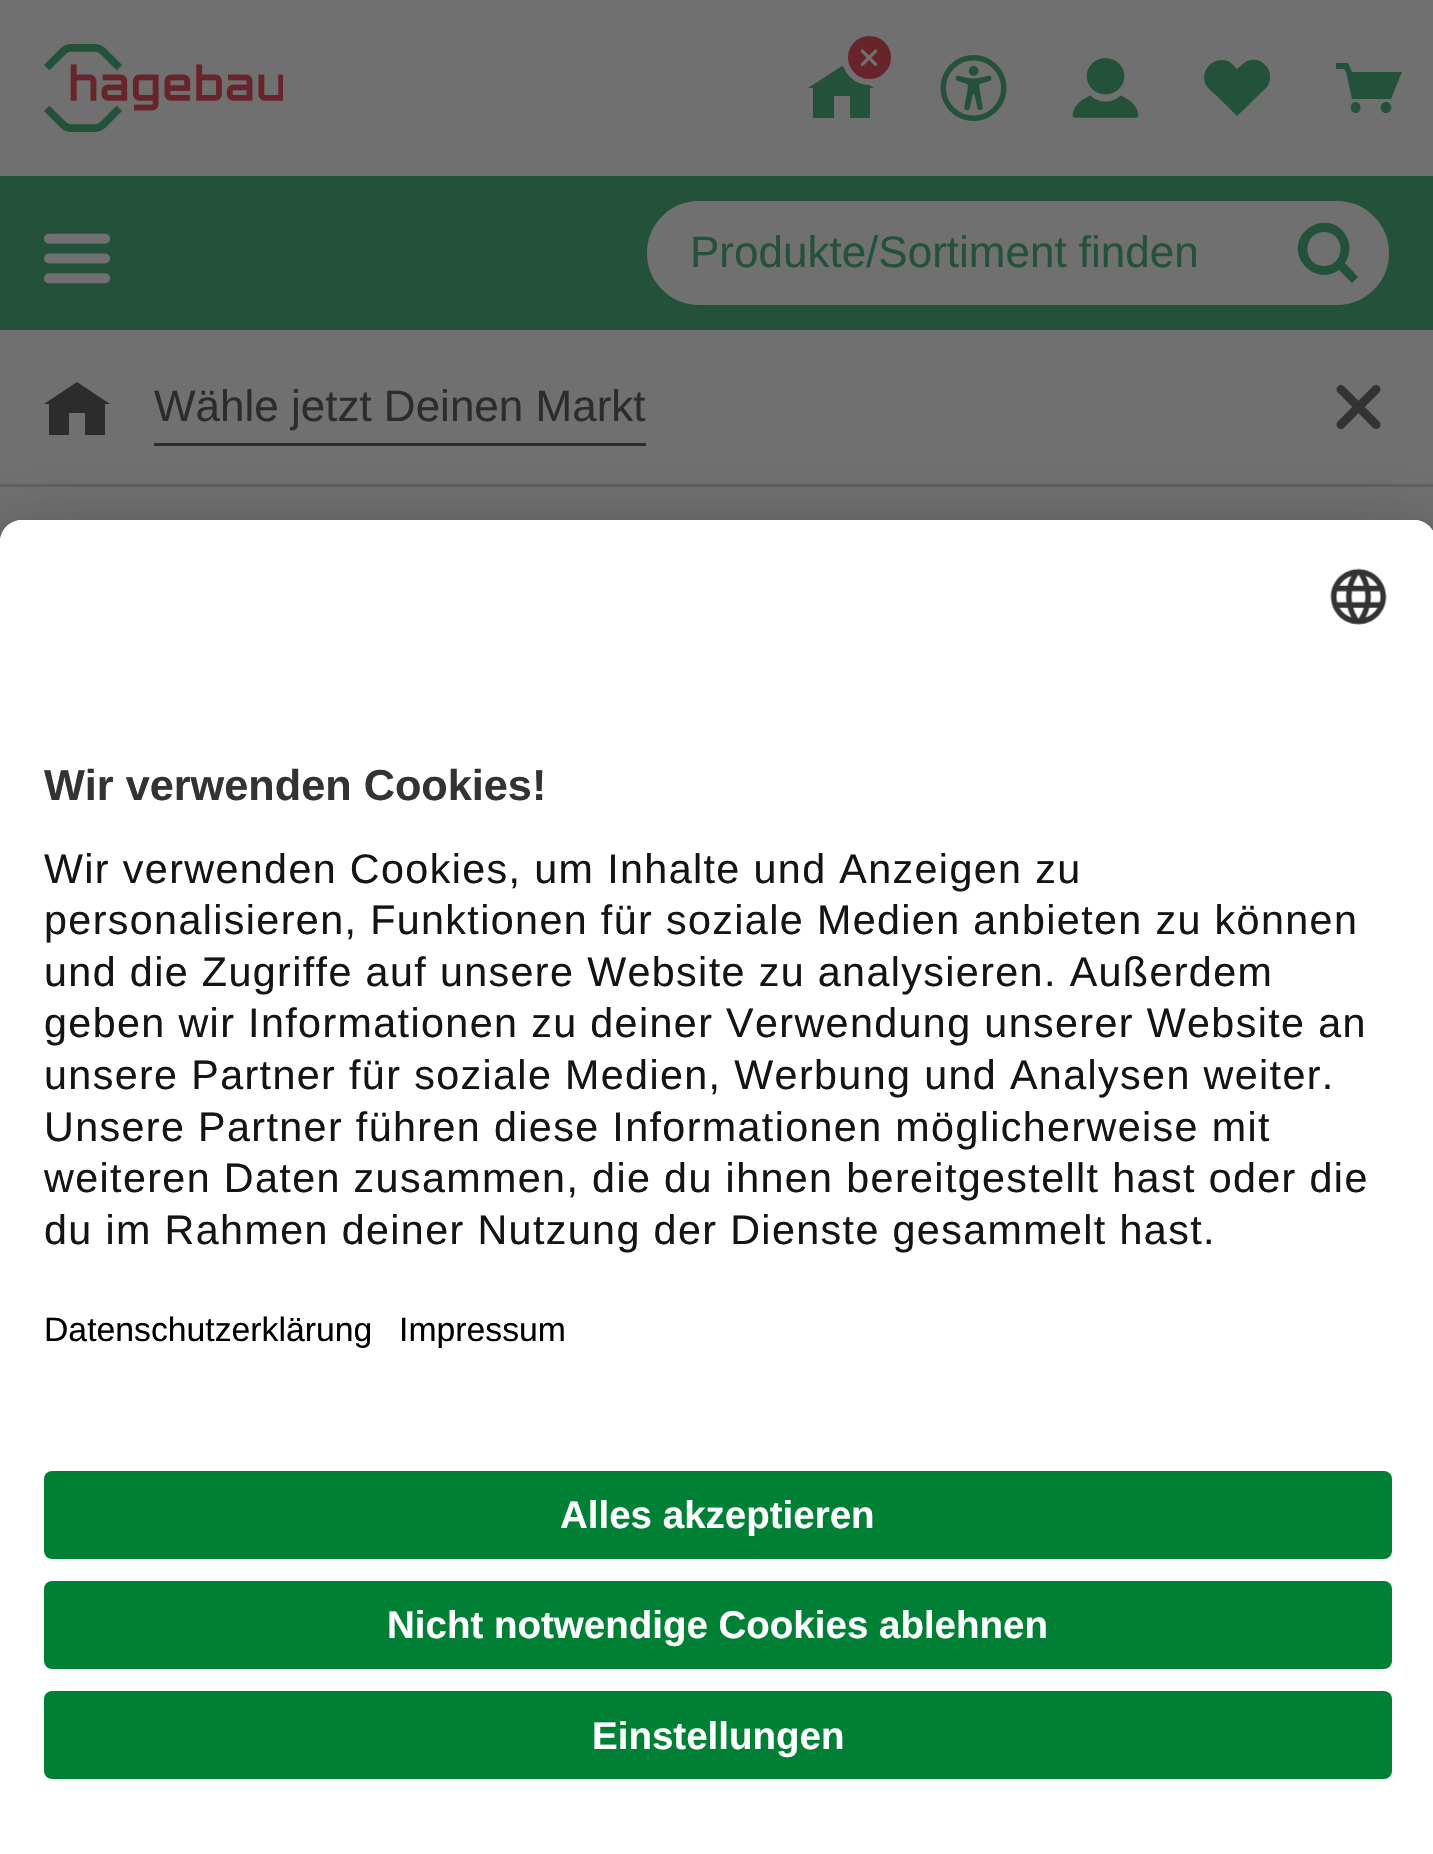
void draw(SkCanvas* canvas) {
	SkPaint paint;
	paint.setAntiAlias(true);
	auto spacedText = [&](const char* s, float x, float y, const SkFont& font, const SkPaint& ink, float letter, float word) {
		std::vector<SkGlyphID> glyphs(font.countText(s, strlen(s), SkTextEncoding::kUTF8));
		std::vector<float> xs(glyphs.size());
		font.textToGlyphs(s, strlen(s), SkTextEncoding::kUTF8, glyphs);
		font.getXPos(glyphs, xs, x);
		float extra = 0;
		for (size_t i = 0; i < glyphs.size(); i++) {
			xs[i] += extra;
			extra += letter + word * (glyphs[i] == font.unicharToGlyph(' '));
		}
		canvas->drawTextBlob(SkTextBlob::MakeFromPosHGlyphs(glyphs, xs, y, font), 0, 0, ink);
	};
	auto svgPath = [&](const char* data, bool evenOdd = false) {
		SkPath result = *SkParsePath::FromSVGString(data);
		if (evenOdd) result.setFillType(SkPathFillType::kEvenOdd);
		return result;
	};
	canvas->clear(0xff707070);
	canvas->drawImageRect(SkImages::DeferredFromEncodedData(SkData::MakeFromFileName("img1.png")), SkRect::MakeXYWH(44, 44, 239, 88), SkSamplingOptions());
	paint.setColor(0xff245139);
	canvas->drawPath(svgPath("M842 66L874 88H870V118H834H850V96H834V118H813V88H808Z"), paint);
	paint.setColor(0xff67242b);
	canvas->drawCircle(869.5, 57.5, 24.5, paint);
	paint.setStroke(true);
	paint.setStrokeWidth(6);
	paint.setColor(0xff707070);
	canvas->drawCircle(869.5, 57.5, 24.5, paint);
	canvas->drawImageRect(SkImages::DeferredFromEncodedData(SkData::MakeFromFileName("img2.png")), SkRect::MakeXYWH(860, 49, 18, 17), SkSamplingOptions());
	canvas->drawImageRect(SkImages::DeferredFromEncodedData(SkData::MakeFromFileName("img3.png")), SkRect::MakeXYWH(940, 55, 67, 66), SkSamplingOptions());
	canvas->drawImageRect(SkImages::DeferredFromEncodedData(SkData::MakeFromFileName("img4.png")), SkRect::MakeXYWH(1072, 58, 67, 60), SkSamplingOptions());
	paint.setStroke(false);
	paint.setColor(0xff245139);
	canvas->drawPath(svgPath("M1265 65C1260 59 1251 58 1244 63L1237 69C1234 66 1232 63 1228 61C1213 56 1199 71 1206 85C1209 90 1215 94 1219 98L1237 116L1267 87C1272 80 1271 70 1265 65Z"), paint);
	canvas->drawPath(svgPath("M1352 99H1391L1402 72H1352L1348 63H1336V69H1344L1346 72ZM1356 102C1349 102 1349 113 1356 113C1362 113 1362 102 1356 102ZM1386 113C1393 113 1393 102 1386 102C1379 102 1379 113 1386 113Z"), paint);
	canvas->drawRect(SkRect::MakeXYWH(0, 176, 1433, 154), paint);
	canvas->drawImageRect(SkImages::DeferredFromEncodedData(SkData::MakeFromFileName("img5.png")), SkRect::MakeXYWH(44, 233, 66, 51), SkSamplingOptions());
	paint.setColor(0xff707070);
	canvas->drawRoundRect(SkRect::MakeXYWH(645.5, 199.5, 745, 107), 53.5, 53.5, paint);
	paint.setStroke(true);
	paint.setStrokeWidth(3);
	paint.setColor(0xff245139);
	canvas->drawRoundRect(SkRect::MakeXYWH(645.5, 199.5, 745, 107), 53.5, 53.5, paint);
	SkFont f1(fontMgr->matchFamilyStyle("Liberation Sans", SkFontStyle::Normal()), 44);
	f1.setSubpixel(true);
	paint.setStroke(false);
	canvas->drawString("Produkte/Sortiment finden", 690, 267, f1, paint);
	canvas->drawPath(svgPath("M1339 270C1317 286 1288 260 1301 236C1304 231 1309 227 1314 225C1321 222 1329 222 1335 225C1349 232 1354 250 1345 263L1358 277L1352 283ZM1324 266C1346 266 1346 232 1324 232C1302 232 1302 266 1324 266Z"), paint);
	paint.setColor(0xff616161);
	canvas->drawRect(SkRect::MakeXYWH(0, 484, 1433, 3), paint);
	paint.setColor(0xff2c2c2c);
	canvas->drawPath(svgPath("M77 382L110 404H105V435H69H85V413H69V435H49V404H44Z"), paint);
	canvas->drawString("Wähle jetzt Deinen Markt", 154, 421, f1, paint);
	canvas->drawRect(SkRect::MakeXYWH(154, 443, 492, 3), paint);
	canvas->drawImageRect(SkImages::DeferredFromEncodedData(SkData::MakeFromFileName("img6.png")), SkRect::MakeXYWH(1336, 385, 45, 44), SkSamplingOptions());
	paint.setColor(0x4d000000);
	paint.setMaskFilter(SkMaskFilter::MakeBlur(kNormal_SkBlurStyle, 38.5));
	canvas->drawRoundRect(SkRect::MakeXYWH(0, 575, 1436, 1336), 22, 22, paint);
	paint.setMaskFilter(nullptr);
	paint.setColor(0x38000000);
	paint.setMaskFilter(SkMaskFilter::MakeBlur(kNormal_SkBlurStyle, 36));
	canvas->drawRoundRect(SkRect::MakeXYWH(0, 534, 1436, 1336), 22, 22, paint);
	paint.setMaskFilter(nullptr);
	paint.setColor(0xffffffff);
	canvas->drawPath(svgPath("M22 520H1414C1426 520 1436 530 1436 542V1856H0V542C0 530 10 520 22 520Z"), paint);
	canvas->drawPath(svgPath("M22 520H1414C1426 520 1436 530 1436 542V1438H0V542C0 530 10 520 22 520Z"), paint);
	canvas->drawImageRect(SkImages::DeferredFromEncodedData(SkData::MakeFromFileName("img7.png")), SkRect::MakeXYWH(1330, 568, 57, 57), SkSamplingOptions());
	SkFont f2(fontMgr->matchFamilyStyle("Liberation Sans", SkFontStyle::Bold()), 43.25);
	f2.setSubpixel(true);
	paint.setColor(0xff333333);
	canvas->drawString("Wir verwenden Cookies!", 44, 800, f2, paint);
	SkFont f3(fontMgr->matchFamilyStyle("Liberation Sans", SkFontStyle::Normal()), 41.25);
	f3.setSubpixel(true);
	paint.setColor(0xff141414);
	spacedText("Wir verwenden Cookies, um Inhalte und Anzeigen zu", 44, 883, f3, paint, 1.38, 0);
	spacedText("personalisieren, Funktionen für soziale Medien anbieten zu können", 44, 934, f3, paint, 1.38, 0);
	spacedText("und die Zugriffe auf unsere Website zu analysieren. Außerdem", 44, 986, f3, paint, 1.38, 0);
	spacedText("geben wir Informationen zu deiner Verwendung unserer Website an", 44, 1037, f3, paint, 1.38, 0);
	spacedText("unsere Partner für soziale Medien, Werbung und Analysen weiter.", 44, 1089, f3, paint, 1.38, 0);
	spacedText("Unsere Partner führen diese Informationen möglicherweise mit", 44, 1141, f3, paint, 1.38, 0);
	spacedText("weiteren Daten zusammen, die du ihnen bereitgestellt hast oder die", 44, 1192, f3, paint, 1.38, 0);
	spacedText("du im Rahmen deiner Nutzung der Dienste gesammelt hast.", 44, 1244, f3, paint, 1.38, 0);
	SkFont f4(fontMgr->matchFamilyStyle("Liberation Sans", SkFontStyle::Normal()), 33.75);
	f4.setSubpixel(true);
	paint.setColor(0xff000000);
	canvas->drawString("Datenschutzerklärung", 44, 1341, f4, paint);
	canvas->drawString("Impressum", 399, 1341, f4, paint);
	paint.setColor(0xff008035);
	canvas->drawRoundRect(SkRect::MakeXYWH(44, 1471, 1348, 88), 8, 8, paint);
	SkFont f5(fontMgr->matchFamilyStyle("Liberation Sans", SkFontStyle::Bold()), 38.5);
	f5.setSubpixel(true);
	paint.setColor(0xffffffff);
	canvas->drawString("Alles akzeptieren", 560, 1528, f5, paint);
	paint.setColor(0xff008035);
	canvas->drawRoundRect(SkRect::MakeXYWH(44, 1581, 1348, 88), 8, 8, paint);
	paint.setColor(0xffffffff);
	canvas->drawString("Nicht notwendige Cookies ablehnen", 387, 1638, f5, paint);
	paint.setColor(0xff008035);
	canvas->drawRoundRect(SkRect::MakeXYWH(44, 1691, 1348, 88), 8, 8, paint);
	paint.setColor(0xffffffff);
	canvas->drawString("Einstellungen", 592, 1749, f5, paint);
}
